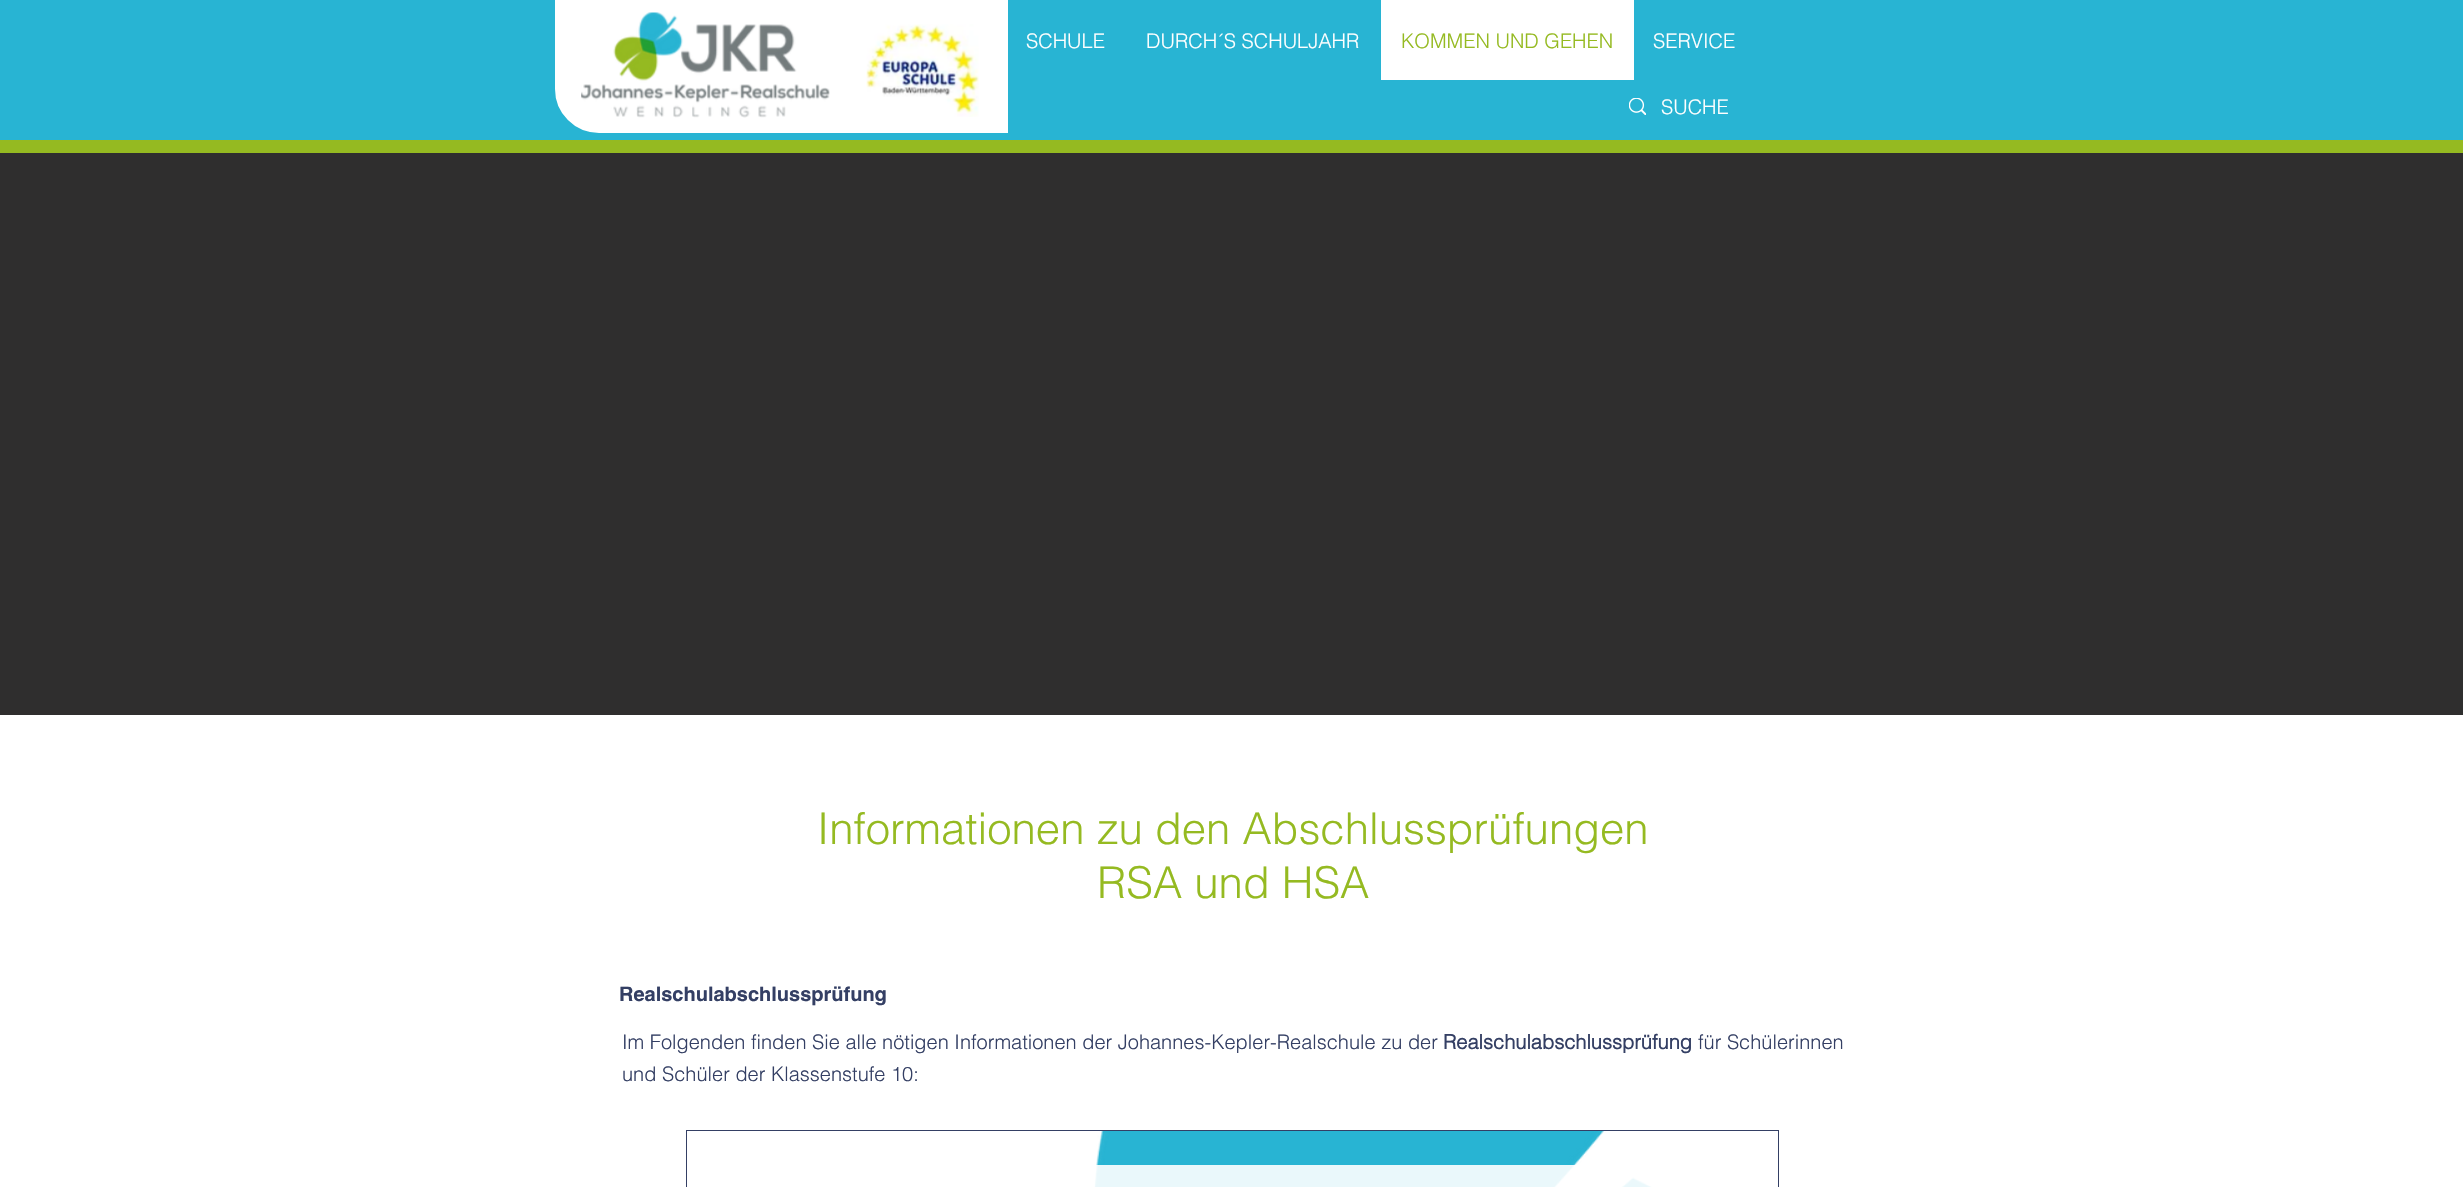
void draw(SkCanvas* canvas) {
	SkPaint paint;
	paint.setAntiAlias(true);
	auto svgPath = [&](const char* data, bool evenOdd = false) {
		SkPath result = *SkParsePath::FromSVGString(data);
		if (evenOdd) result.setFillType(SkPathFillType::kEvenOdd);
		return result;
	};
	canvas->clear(0xffffffff);
	paint.setColor(0xff28b4d3);
	canvas->drawRect(SkRect::MakeXYWH(0, 0, 2463, 140), paint);
	paint.setColor(0xffffffff);
	canvas->drawPath(svgPath("M556.5 1.5H1006.5V131.5H599C575.5 131.5 556.5 112.5 556.5 89Z"), paint);
	paint.setStroke(true);
	paint.setStrokeWidth(3);
	canvas->drawPath(svgPath("M556.5 1.5H1006.5V131.5H599C575.5 131.5 556.5 112.5 556.5 89Z"), paint);
	canvas->drawImageRect(SkImages::DeferredFromEncodedData(SkData::MakeFromFileName("img1.png")), SkRect::MakeXYWH(581, 12, 249, 106), SkSamplingOptions());
	canvas->drawImageRect(SkImages::DeferredFromEncodedData(SkData::MakeFromFileName("img2.png")), SkRect::MakeXYWH(866, 24, 113, 93), SkSamplingOptions());
	SkFont f1(fontMgr->matchFamilyStyle("helvetica", SkFontStyle(300, SkFontStyle::kNormal_Width, SkFontStyle::kUpright_Slant)), 20);
	f1.setSubpixel(true);
	paint.setStroke(false);
	canvas->drawString("SCHULE", 1026, 48, f1, paint);
	canvas->drawString("DURCH´S SCHULJAHR", 1146, 48, f1, paint);
	canvas->drawRect(SkRect::MakeXYWH(1381, 0, 253, 80), paint);
	paint.setColor(0xff95ba21);
	canvas->drawString("KOMMEN UND GEHEN", 1401, 48, f1, paint);
	paint.setColor(0xffffffff);
	canvas->drawString("SERVICE", 1653, 48, f1, paint);
	canvas->drawImageRect(SkImages::DeferredFromEncodedData(SkData::MakeFromFileName("img3.png")), SkRect::MakeXYWH(1629, 98, 17, 17), SkSamplingOptions());
	canvas->drawString("SUCHE", 1661, 114, f1, paint);
	paint.setColor(0xff95ba21);
	canvas->drawRect(SkRect::MakeXYWH(0, 140, 2463, 13), paint);
	paint.setColor(0xff2f2e2e);
	canvas->drawRect(SkRect::MakeXYWH(0, 153, 2463, 562), paint);
	SkFont f2(fontMgr->matchFamilyStyle("helvetica", SkFontStyle(300, SkFontStyle::kNormal_Width, SkFontStyle::kUpright_Slant)), 43.75);
	f2.setSubpixel(true);
	paint.setColor(0xff95ba21);
	canvas->drawString("Informationen zu den Abschlussprüfungen", 817, 844, f2, paint);
	canvas->drawString("RSA und HSA", 1097, 898, f2, paint);
	SkFont f3(fontMgr->matchFamilyStyle("helvetica", SkFontStyle::Bold()), 20);
	f3.setSubpixel(true);
	paint.setColor(0xff343f64);
	canvas->drawString("Realschulabschlussprüfung", 619, 1001, f3, paint);
	canvas->drawString("Im Folgenden finden Sie alle nötigen Informationen der Johannes-Kepler-Realschule zu der", 622, 1049, f1, paint);
	SkFont f4(fontMgr->matchFamilyStyle("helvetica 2", SkFontStyle::Bold()), 20);
	f4.setSubpixel(true);
	canvas->drawString("Realschulabschlussprüfung", 1443, 1049, f4, paint);
	canvas->drawString("für Schülerinnen", 1698, 1049, f1, paint);
	canvas->drawString("und Schüler der Klassenstufe 10:", 622, 1081, f1, paint);
	canvas->drawImageRect(SkImages::DeferredFromEncodedData(SkData::MakeFromFileName("img4.png")), SkRect::MakeXYWH(1094, 1131, 558, 56), SkSamplingOptions());
	paint.setStroke(true);
	paint.setStrokeWidth(1);
	canvas->drawRect(SkRect::MakeXYWH(686.5, 1130.5, 1092, 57), paint);
	paint.setStroke(false);
	paint.setColor(0xe6ffffff);
	canvas->drawRect(SkRect::MakeXYWH(1094, 1165, 558, 22), paint);
}
